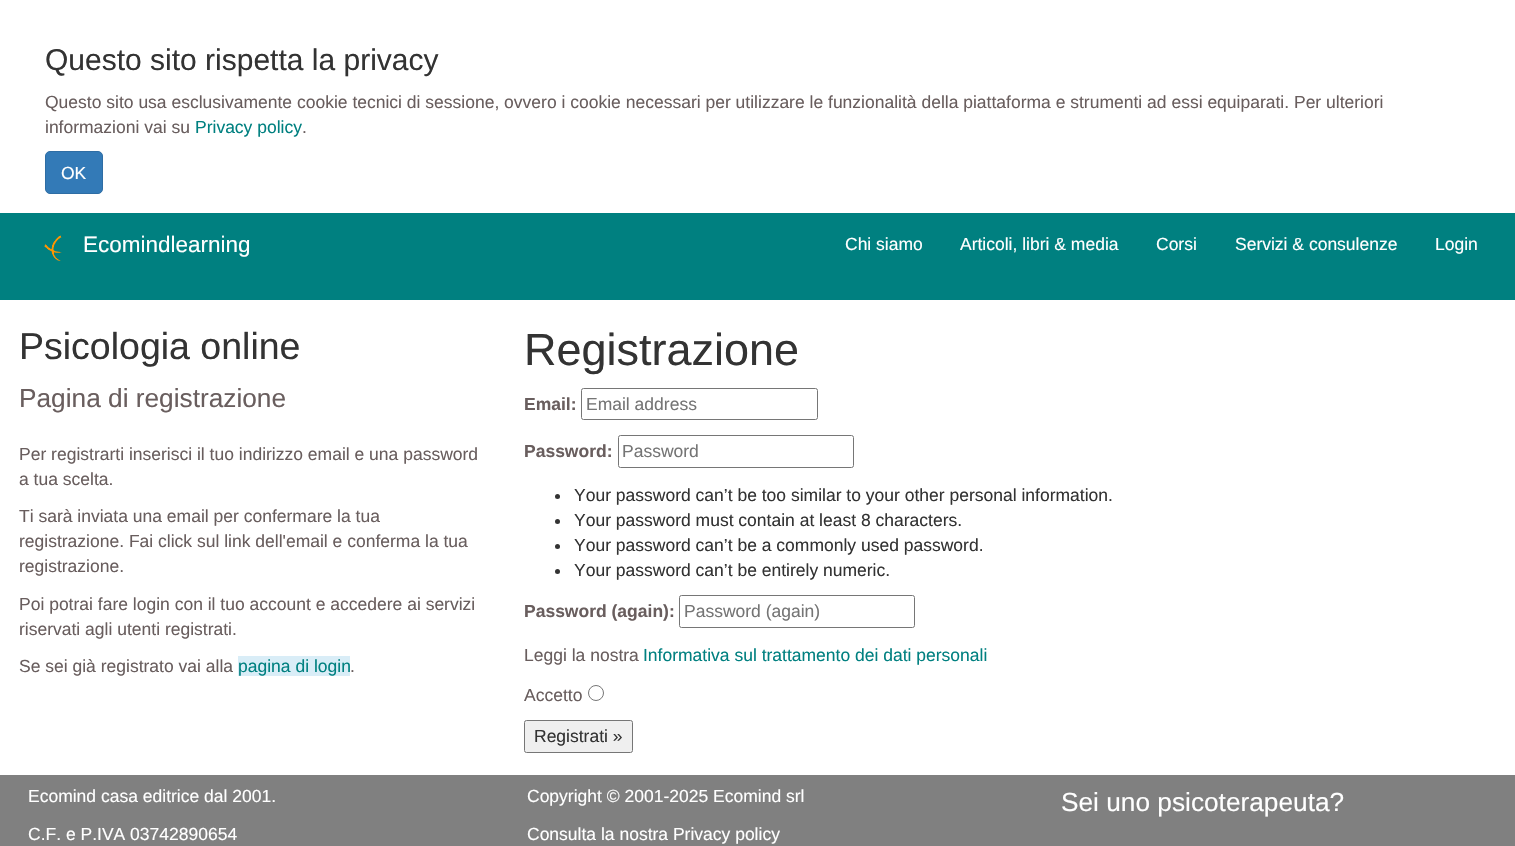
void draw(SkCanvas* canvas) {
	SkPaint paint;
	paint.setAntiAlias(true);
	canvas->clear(0xffffffff);
	SkFont f1(fontMgr->matchFamilyStyle("Liberation Sans", SkFontStyle::Normal()), 30);
	f1.setSubpixel(true);
	paint.setColor(0xff333333);
	canvas->drawString("Questo sito rispetta la privacy", 45, 70, f1, paint);
	SkFont f2(fontMgr->matchFamilyStyle("Liberation Sans", SkFontStyle::Normal()), 17.5);
	f2.setSubpixel(true);
	paint.setColor(0xff695e5e);
	canvas->drawString("Questo sito usa esclusivamente cookie tecnici di sessione, ovvero i cookie necessari per utilizzare le funzionalità della piattaforma e strumenti ad essi equiparati. Per ulteriori", 45, 108, f2, paint);
	canvas->drawString("informazioni vai su", 45, 133, f2, paint);
	paint.setColor(0xff008080);
	canvas->drawString("Privacy policy", 195, 133, f2, paint);
	paint.setColor(0xff695e5e);
	canvas->drawString(".", 302, 133, f2, paint);
	paint.setColor(0xff337ab7);
	canvas->drawRoundRect(SkRect::MakeXYWH(45.5, 151.5, 57, 42), 4.5, 4.5, paint);
	paint.setStroke(true);
	paint.setStrokeWidth(1);
	paint.setColor(0xff2e6da4);
	canvas->drawRoundRect(SkRect::MakeXYWH(45.5, 151.5, 57, 42), 4.5, 4.5, paint);
	paint.setStroke(false);
	paint.setColor(0xffffffff);
	canvas->drawString("OK", 61, 179, f2, paint);
	paint.setColor(0xff008080);
	canvas->drawRect(SkRect::MakeXYWH(0, 213, 1515, 87), paint);
	canvas->drawImageRect(SkImages::DeferredFromEncodedData(SkData::MakeFromFileName("img1.png")), SkRect::MakeXYWH(44, 235, 18, 26), SkSamplingOptions());
	SkFont f3(fontMgr->matchFamilyStyle("Liberation Sans", SkFontStyle::Normal()), 22.5);
	f3.setSubpixel(true);
	paint.setColor(0xffffffff);
	canvas->drawString("Ecomindlearning", 83, 252, f3, paint);
	canvas->drawString("Chi siamo", 845, 250, f2, paint);
	canvas->drawString("Articoli, libri & media", 960, 250, f2, paint);
	canvas->drawString("Corsi", 1156, 250, f2, paint);
	canvas->drawString("Servizi & consulenze", 1235, 250, f2, paint);
	canvas->drawString("Login", 1435, 250, f2, paint);
	SkFont f4(fontMgr->matchFamilyStyle("Liberation Sans", SkFontStyle::Normal()), 37.5);
	f4.setSubpixel(true);
	paint.setColor(0xff333333);
	canvas->drawString("Psicologia online", 19, 359, f4, paint);
	SkFont f5(fontMgr->matchFamilyStyle("Liberation Sans", SkFontStyle::Normal()), 26.25);
	f5.setSubpixel(true);
	paint.setColor(0xff695e5e);
	canvas->drawString("Pagina di registrazione", 19, 407, f5, paint);
	canvas->drawString("Per registrarti inserisci il tuo indirizzo email e una password", 19, 460, f2, paint);
	canvas->drawString("a tua scelta.", 19, 485, f2, paint);
	canvas->drawString("Ti sarà inviata una email per confermare la tua", 19, 522, f2, paint);
	canvas->drawString("registrazione. Fai click sul link dell'email e conferma la tua", 19, 547, f2, paint);
	canvas->drawString("registrazione.", 19, 572, f2, paint);
	canvas->drawString("Poi potrai fare login con il tuo account e accedere ai servizi", 19, 610, f2, paint);
	canvas->drawString("riservati agli utenti registrati.", 19, 635, f2, paint);
	canvas->drawString("Se sei già registrato vai alla", 19, 672, f2, paint);
	paint.setColor(0xffd9edf7);
	canvas->drawRect(SkRect::MakeXYWH(238, 656, 112, 20), paint);
	paint.setColor(0xff008080);
	canvas->drawString("pagina di login", 238, 672, f2, paint);
	paint.setColor(0xff695e5e);
	canvas->drawString(".", 350, 672, f2, paint);
	SkFont f6(fontMgr->matchFamilyStyle("Liberation Sans", SkFontStyle::Normal()), 45);
	f6.setSubpixel(true);
	paint.setColor(0xff333333);
	canvas->drawString("Registrazione", 524, 365, f6, paint);
	SkFont f7(fontMgr->matchFamilyStyle("Liberation Sans", SkFontStyle::Bold()), 17.5);
	f7.setSubpixel(true);
	paint.setColor(0xff695e5e);
	canvas->drawString("Email:", 524, 410, f7, paint);
	paint.setStroke(true);
	paint.setColor(0xff767676);
	canvas->drawRoundRect(SkRect::MakeXYWH(581.5, 388.5, 236, 31), 2, 2, paint);
	paint.setStroke(false);
	paint.setColor(0xff757575);
	canvas->drawString("Email address", 586, 410, f2, paint);
	paint.setColor(0xff695e5e);
	canvas->drawString("Password:", 524, 457, f7, paint);
	paint.setStroke(true);
	paint.setColor(0xff767676);
	canvas->drawRoundRect(SkRect::MakeXYWH(618.5, 435.5, 235, 32), 2, 2, paint);
	paint.setStroke(false);
	paint.setColor(0xff757575);
	canvas->drawString("Password", 622, 457, f2, paint);
	paint.setColor(0xff333333);
	canvas->drawCircle(557.5, 496.5, 2.5, paint);
	canvas->drawString("Your password can’t be too similar to your other personal information.", 574, 501, f2, paint);
	canvas->drawCircle(557.5, 521.5, 2.5, paint);
	canvas->drawString("Your password must contain at least 8 characters.", 574, 526, f2, paint);
	canvas->drawCircle(557.5, 546.5, 2.5, paint);
	canvas->drawString("Your password can’t be a commonly used password.", 574, 551, f2, paint);
	canvas->drawCircle(557.5, 571.5, 2.5, paint);
	canvas->drawString("Your password can’t be entirely numeric.", 574, 576, f2, paint);
	paint.setColor(0xff695e5e);
	canvas->drawString("Password (again):", 524, 617, f7, paint);
	paint.setStroke(true);
	paint.setColor(0xff767676);
	canvas->drawRoundRect(SkRect::MakeXYWH(679.5, 595.5, 235, 32), 2, 2, paint);
	paint.setStroke(false);
	paint.setColor(0xff757575);
	canvas->drawString("Password (again)", 684, 617, f2, paint);
	paint.setColor(0xff695e5e);
	canvas->drawString("Leggi la nostra", 524, 661, f2, paint);
	paint.setColor(0xff008080);
	canvas->drawString("Informativa sul trattamento dei dati personali", 643, 661, f2, paint);
	paint.setColor(0xff695e5e);
	canvas->drawString("Accetto", 524, 701, f2, paint);
	paint.setStroke(true);
	paint.setColor(0xff767676);
	canvas->drawCircle(596, 693, 7.5, paint);
	paint.setStroke(false);
	paint.setColor(0xffefefef);
	canvas->drawRoundRect(SkRect::MakeXYWH(524.5, 720.5, 108, 32), 2, 2, paint);
	paint.setStroke(true);
	paint.setColor(0xff767676);
	canvas->drawRoundRect(SkRect::MakeXYWH(524.5, 720.5, 108, 32), 2, 2, paint);
	paint.setStroke(false);
	paint.setColor(0xff333333);
	canvas->drawString("Registrati »", 534, 742, f2, paint);
	paint.setColor(0xff808080);
	canvas->drawRect(SkRect::MakeXYWH(0, 775, 1515, 71), paint);
	paint.setColor(0xffffffff);
	canvas->drawString("Ecomind casa editrice dal 2001.", 28, 802, f2, paint);
	canvas->drawString("C.F. e P.IVA 03742890654", 28, 840, f2, paint);
	canvas->drawString("Copyright © 2001-2025 Ecomind srl", 527, 802, f2, paint);
	canvas->drawString("Consulta la nostra Privacy policy", 527, 840, f2, paint);
	canvas->drawString("Sei uno psicoterapeuta?", 1061, 811, f5, paint);
}
